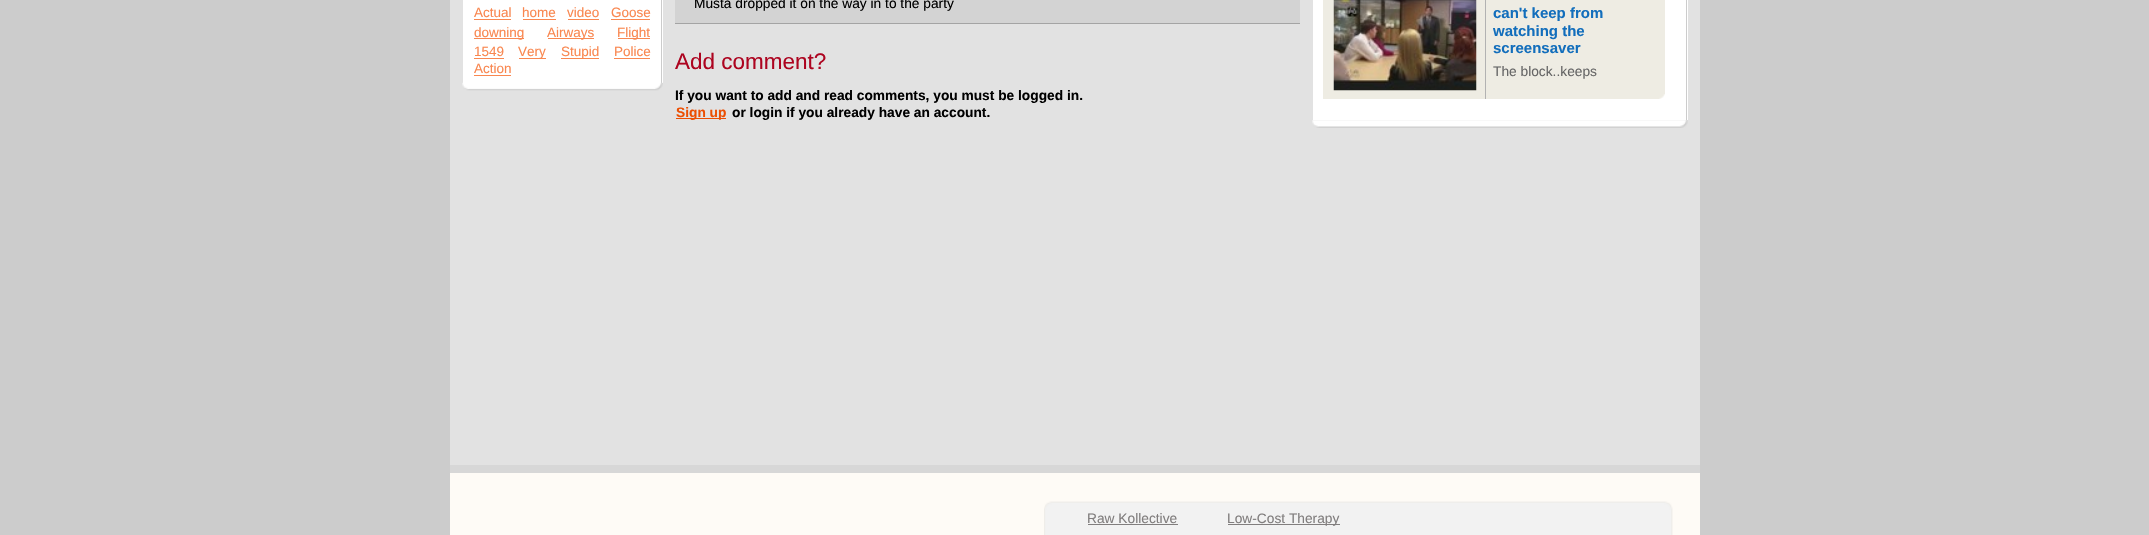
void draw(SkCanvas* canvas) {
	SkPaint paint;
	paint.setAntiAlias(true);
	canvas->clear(0xffcccccc);
	paint.setColor(0xffe2e2e2);
	canvas->drawRect(SkRect::MakeXYWH(450, 0, 1250, 465), paint);
	paint.setColor(0xffffffff);
	canvas->drawRect(SkRect::MakeXYWH(463, 0, 200, 83), paint);
	paint.setColor(0xffcccccc);
	canvas->drawRect(SkRect::MakeXYWH(661, 0, 1, 83), paint);
	SkFont f1(fontMgr->matchFamilyStyle("Liberation Sans", SkFontStyle::Normal()), 13.5);
	f1.setSubpixel(true);
	paint.setColor(0xfff98750);
	canvas->drawString("Actual", 474, 17, f1, paint);
	canvas->drawRect(SkRect::MakeXYWH(474, 19, 37, 1), paint);
	canvas->drawString("home", 522, 17, f1, paint);
	canvas->drawRect(SkRect::MakeXYWH(523, 19, 33, 1), paint);
	canvas->drawString("video", 567, 17, f1, paint);
	canvas->drawRect(SkRect::MakeXYWH(568, 19, 31, 1), paint);
	canvas->drawString("Goose", 611, 17, f1, paint);
	canvas->drawRect(SkRect::MakeXYWH(611, 19, 39, 1), paint);
	canvas->drawRect(SkRect::MakeXYWH(474, 38, 50, 1), paint);
	canvas->drawString("downing", 474, 37, f1, paint);
	canvas->drawRect(SkRect::MakeXYWH(548, 38, 46, 1), paint);
	canvas->drawString("Airways", 547, 37, f1, paint);
	canvas->drawRect(SkRect::MakeXYWH(618, 38, 32, 1), paint);
	canvas->drawString("Flight", 617, 37, f1, paint);
	canvas->drawString("1549", 474, 56, f1, paint);
	canvas->drawRect(SkRect::MakeXYWH(474, 58, 30, 1), paint);
	canvas->drawRect(SkRect::MakeXYWH(519, 58, 27, 1), paint);
	canvas->drawString("Very", 518, 56, f1, paint);
	canvas->drawRect(SkRect::MakeXYWH(561, 58, 38, 1), paint);
	canvas->drawString("Stupid", 561, 56, f1, paint);
	canvas->drawString("Police", 614, 56, f1, paint);
	canvas->drawRect(SkRect::MakeXYWH(614, 58, 36, 1), paint);
	canvas->drawString("Action", 474, 73, f1, paint);
	canvas->drawRect(SkRect::MakeXYWH(474, 75, 37, 1), paint);
	canvas->drawImageRect(SkImages::DeferredFromEncodedData(SkData::MakeFromFileName("img1.png")), SkRect::MakeXYWH(462, 82, 201, 9), SkSamplingOptions());
	paint.setColor(0xffd3d3d3);
	canvas->drawRect(SkRect::MakeXYWH(675, 0, 625, 23), paint);
	paint.setColor(0xffa4a4a4);
	canvas->drawRect(SkRect::MakeXYWH(675, 23, 625, 1), paint);
	SkFont f2(fontMgr->matchFamilyStyle("Liberation Sans", SkFontStyle::Normal()), 13.75);
	f2.setSubpixel(true);
	paint.setColor(0xff000000);
	canvas->drawString("Musta dropped it on the way in to the party", 694, 8, f2, paint);
	SkFont f3(fontMgr->matchFamilyStyle("Liberation Sans", SkFontStyle::Normal()), 22.5);
	f3.setSubpixel(true);
	paint.setColor(0xffad0420);
	canvas->drawString("Add comment?", 675, 69, f3, paint);
	SkFont f4(fontMgr->matchFamilyStyle("Liberation Sans", SkFontStyle::Bold()), 13.75);
	f4.setSubpixel(true);
	paint.setColor(0xff000000);
	canvas->drawString("If you want to add and read comments, you must be logged in.", 675, 100, f4, paint);
	paint.setColor(0xffec4e01);
	canvas->drawRect(SkRect::MakeXYWH(676, 118, 50, 1), paint);
	canvas->drawString("Sign up", 676, 117, f4, paint);
	paint.setColor(0xff000000);
	canvas->drawString("or login if you already have an account.", 732, 117, f4, paint);
	paint.setColor(0xffffffff);
	canvas->drawRect(SkRect::MakeXYWH(1313, 0, 375, 120), paint);
	paint.setColor(0xffcccccc);
	canvas->drawRect(SkRect::MakeXYWH(1686, 0, 1, 120), paint);
	paint.setColor(0xffeeece3);
	canvas->drawRect(SkRect::MakeXYWH(1323, 0, 342, 99), paint);
	canvas->drawImageRect(SkImages::DeferredFromEncodedData(SkData::MakeFromFileName("img2.png")), SkRect::MakeXYWH(1659, 94, 6, 5), SkSamplingOptions());
	paint.setColor(0xffb2b2b2);
	canvas->drawRect(SkRect::MakeXYWH(1485, 0, 1, 99), paint);
	canvas->drawImageRect(SkImages::DeferredFromEncodedData(SkData::MakeFromFileName("img3.png")), SkRect::MakeXYWH(1333, 0, 144, 91), SkSamplingOptions());
	SkFont f5(fontMgr->matchFamilyStyle("Liberation Sans", SkFontStyle::Bold()), 15);
	f5.setSubpixel(true);
	paint.setColor(0xff126ebc);
	canvas->drawString("can't keep from", 1493, 18, f5, paint);
	canvas->drawString("watching the", 1493, 36, f5, paint);
	canvas->drawString("screensaver", 1493, 53, f5, paint);
	paint.setColor(0xff666666);
	canvas->drawString("The block..keeps", 1493, 76, f2, paint);
	canvas->drawImageRect(SkImages::DeferredFromEncodedData(SkData::MakeFromFileName("img4.png")), SkRect::MakeXYWH(1312, 120, 376, 8), SkSamplingOptions());
	paint.setColor(0xfffefbf6);
	canvas->drawRect(SkRect::MakeXYWH(450, 473, 1250, 62), paint);
	paint.setColor(0xffd7d7d7);
	canvas->drawRect(SkRect::MakeXYWH(450, 465, 1250, 8), paint);
	canvas->drawImageRect(SkImages::DeferredFromEncodedData(SkData::MakeFromFileName("img5.png")), SkRect::MakeXYWH(1044, 501, 629, 34), SkSamplingOptions());
	paint.setColor(0xff817e7e);
	canvas->drawString("Raw Kollective", 1087, 523, f2, paint);
	canvas->drawRect(SkRect::MakeXYWH(1088, 524, 90, 1), paint);
	canvas->drawRect(SkRect::MakeXYWH(1228, 524, 112, 1), paint);
	canvas->drawString("Low-Cost Therapy", 1227, 523, f2, paint);
}
